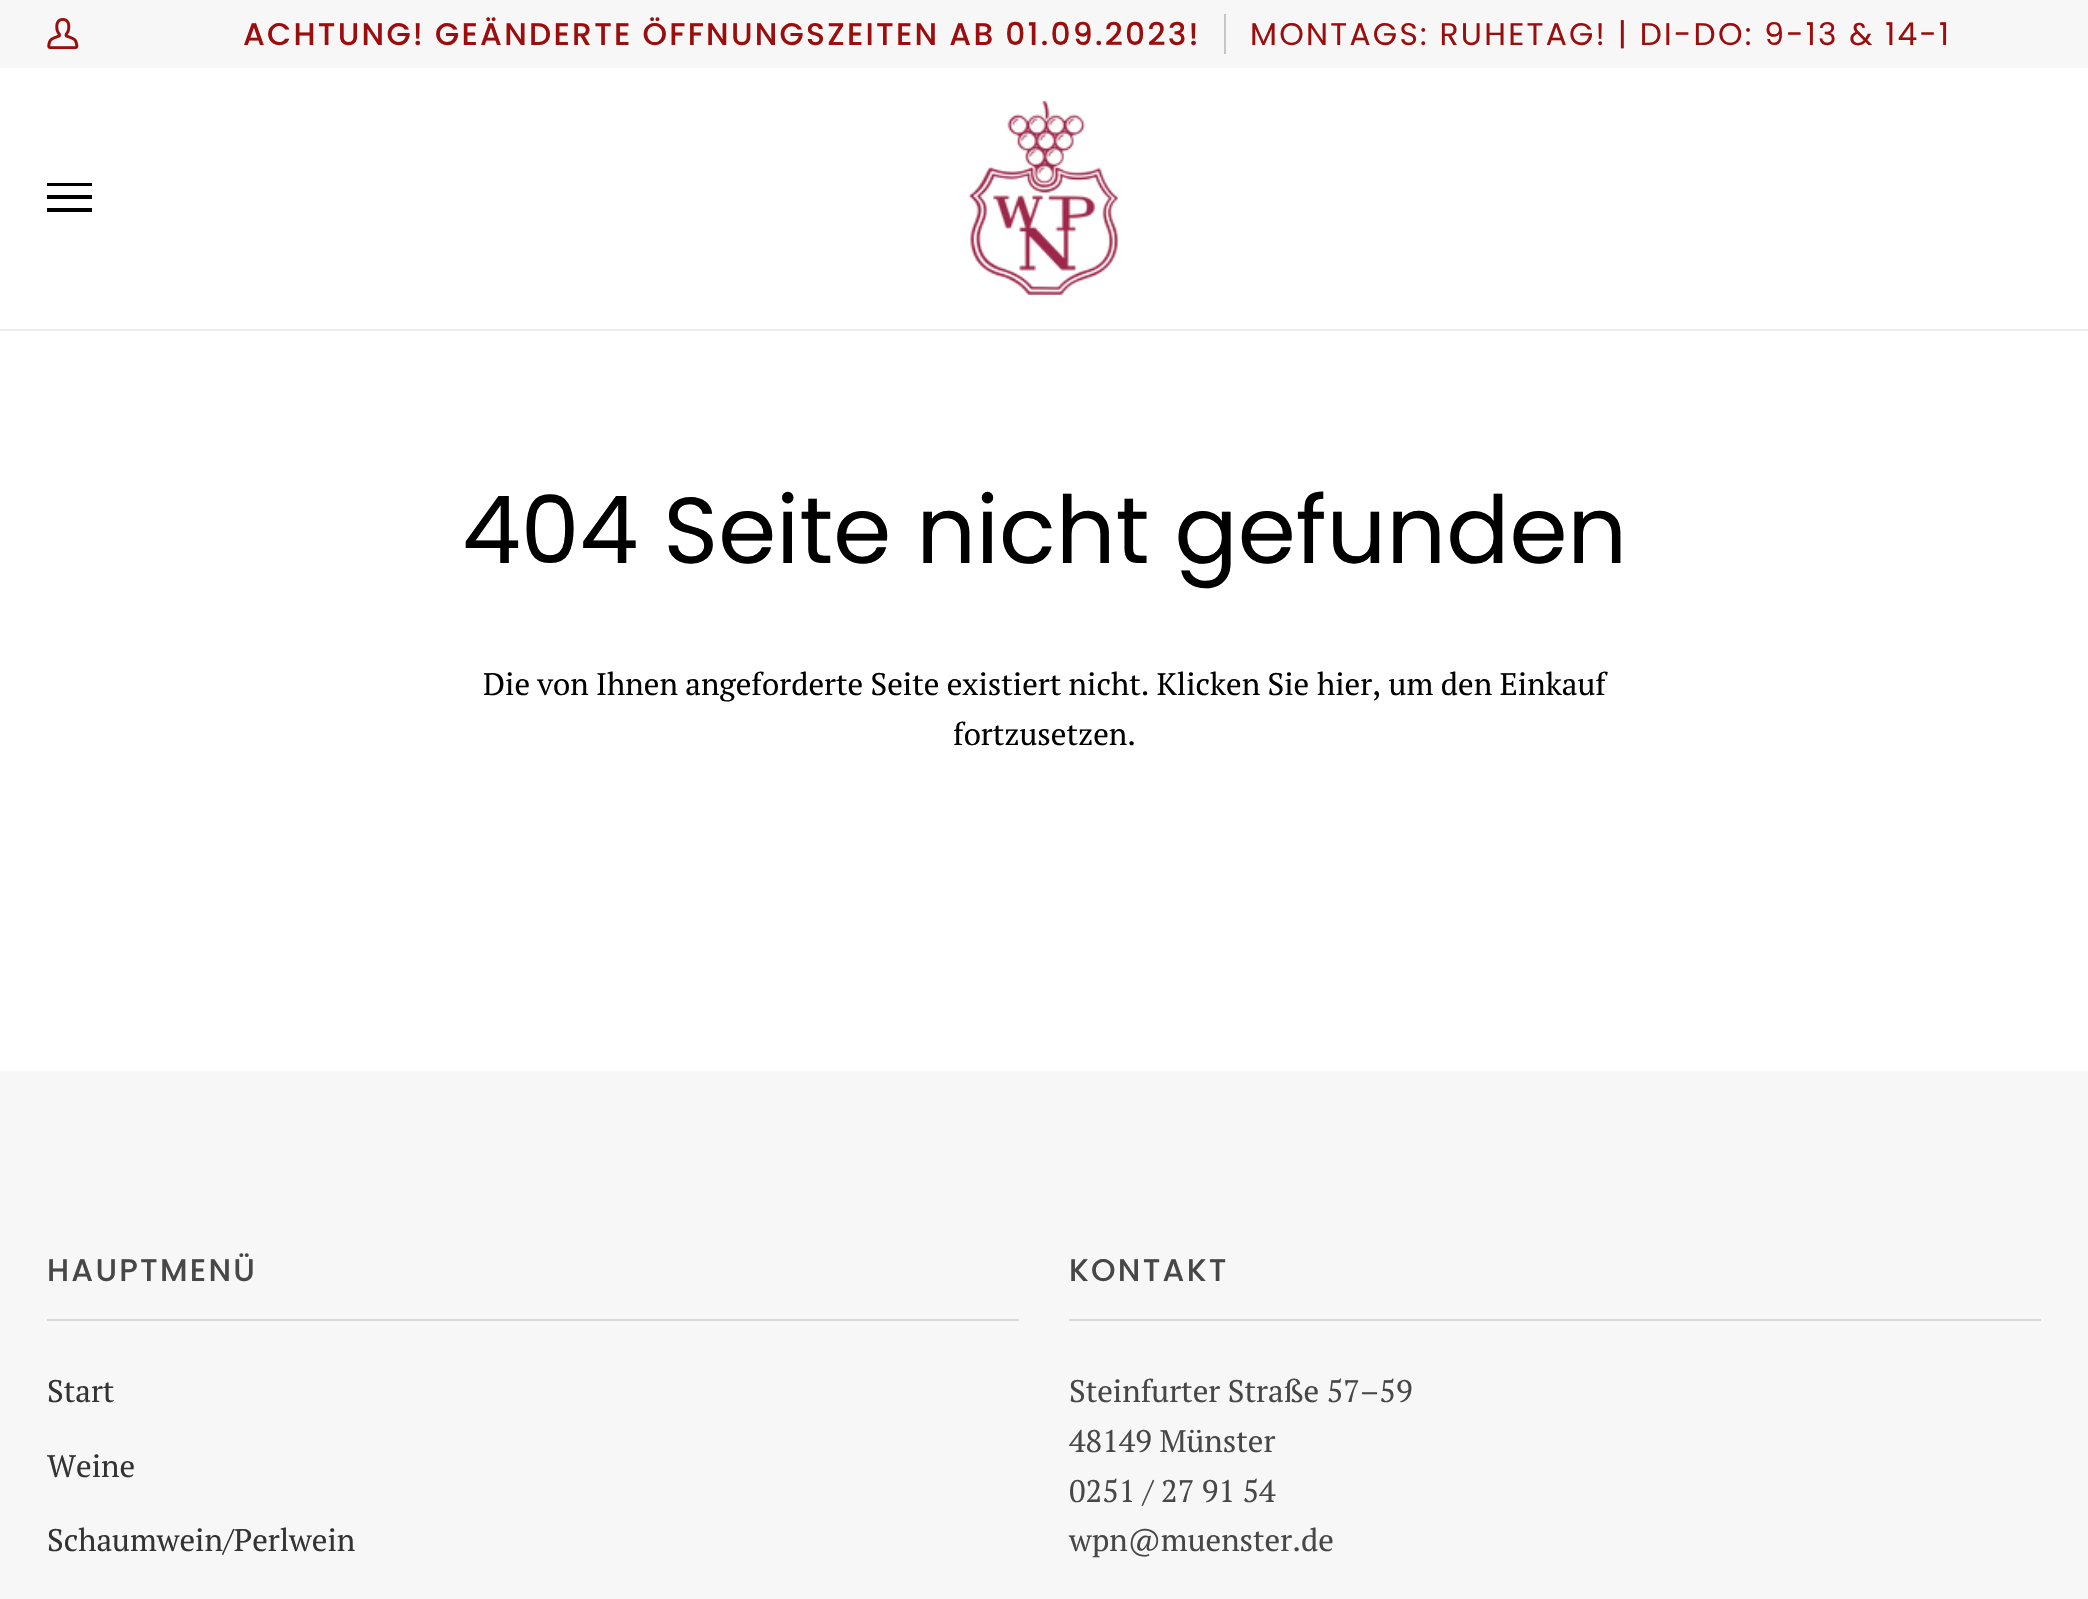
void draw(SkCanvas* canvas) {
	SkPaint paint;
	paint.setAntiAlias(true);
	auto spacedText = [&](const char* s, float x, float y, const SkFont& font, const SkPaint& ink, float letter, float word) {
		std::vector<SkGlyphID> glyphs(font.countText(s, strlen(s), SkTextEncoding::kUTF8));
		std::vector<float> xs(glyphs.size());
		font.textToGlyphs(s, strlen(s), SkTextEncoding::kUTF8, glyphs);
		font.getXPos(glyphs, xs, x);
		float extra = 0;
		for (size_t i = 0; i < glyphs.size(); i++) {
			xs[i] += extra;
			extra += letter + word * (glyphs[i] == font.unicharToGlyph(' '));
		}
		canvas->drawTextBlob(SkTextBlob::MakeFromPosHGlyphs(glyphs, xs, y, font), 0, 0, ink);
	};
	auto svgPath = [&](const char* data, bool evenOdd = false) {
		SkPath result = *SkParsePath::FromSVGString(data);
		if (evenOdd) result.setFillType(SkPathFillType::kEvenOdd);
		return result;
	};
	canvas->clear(0xffffffff);
	paint.setColor(0xfff7f7f7);
	canvas->drawRect(SkRect::MakeXYWH(0, 0, 2088, 68), paint);
	canvas->drawImageRect(SkImages::DeferredFromEncodedData(SkData::MakeFromFileName("img1.png")), SkRect::MakeXYWH(47, 18, 32, 32), SkSamplingOptions());
	SkFont f1(fontMgr->matchFamilyStyle("Poppins", SkFontStyle(500, SkFontStyle::kNormal_Width, SkFontStyle::kUpright_Slant)), 31.3);
	f1.setSubpixel(true);
	paint.setColor(0xff9c0e0e);
	spacedText("ACHTUNG! GEÄNDERTE ÖFFNUNGSZEITEN AB 01.09.2023!", 243, 45, f1, paint, 2.25, -0.5);
	SkFont f2(fontMgr->matchFamilyStyle("Poppins", SkFontStyle::Normal()), 31.3);
	f2.setSubpixel(true);
	spacedText("MONTAGS: RUHETAG! | DI-DO: 9-13 & 14-1", 1250, 45, f2, paint, 2.25, 0);
	paint.setColor(0xffc6c6c6);
	canvas->drawRect(SkRect::MakeXYWH(1224, 14, 2, 40), paint);
	paint.setColor(0xffededed);
	canvas->drawRect(SkRect::MakeXYWH(0, 329, 2088, 2), paint);
	paint.setColor(0xff000000);
	canvas->drawPath(svgPath("M47 183H92V186H47ZM47 195H92V199H47ZM47 208H92V212H47Z"), paint);
	canvas->drawImageRect(SkImages::DeferredFromEncodedData(SkData::MakeFromFileName("img2.png")), SkRect::MakeXYWH(968, 101, 150, 194), SkSamplingOptions());
	SkFont f3(fontMgr->matchFamilyStyle("Poppins", SkFontStyle::Normal()), 93.5);
	f3.setSubpixel(true);
	canvas->drawString("404 Seite nicht gefunden", 462, 563, f3, paint);
	SkFont f4(fontMgr->matchFamilyStyle("PT Serif", SkFontStyle::Normal()), 31.1);
	f4.setSubpixel(true);
	spacedText("Die von Ihnen angeforderte Seite existiert nicht. Klicken Sie", 483, 695, f4, paint, 0, -0.25);
	canvas->drawString("hier, um den Einkauf", 1317, 695, f4, paint);
	canvas->drawString("fortzusetzen.", 953, 745, f4, paint);
	paint.setColor(0xfff7f7f7);
	canvas->drawRect(SkRect::MakeXYWH(0, 1071, 2088, 528), paint);
	paint.setColor(0xff474747);
	spacedText("HAUPTMENÜ", 47, 1281, f1, paint, 2.25, 0);
	paint.setColor(0xffdadada);
	canvas->drawRect(SkRect::MakeXYWH(47, 1319, 972, 2), paint);
	paint.setColor(0xff333333);
	canvas->drawString("Start", 47, 1402, f4, paint);
	canvas->drawString("Weine", 47, 1477, f4, paint);
	canvas->drawString("Schaumwein/Perlwein", 47, 1551, f4, paint);
	paint.setColor(0xff474747);
	spacedText("KONTAKT", 1069, 1281, f1, paint, 2.25, 0);
	paint.setColor(0xffdadada);
	canvas->drawRect(SkRect::MakeXYWH(1069, 1319, 972, 2), paint);
	paint.setColor(0xff474747);
	canvas->drawString("Steinfurter Straße 57–59", 1069, 1402, f4, paint);
	canvas->drawString("48149 Münster", 1069, 1452, f4, paint);
	canvas->drawString("0251 / 27 91 54", 1069, 1502, f4, paint);
	canvas->drawString("wpn@muenster.de", 1069, 1551, f4, paint);
}
